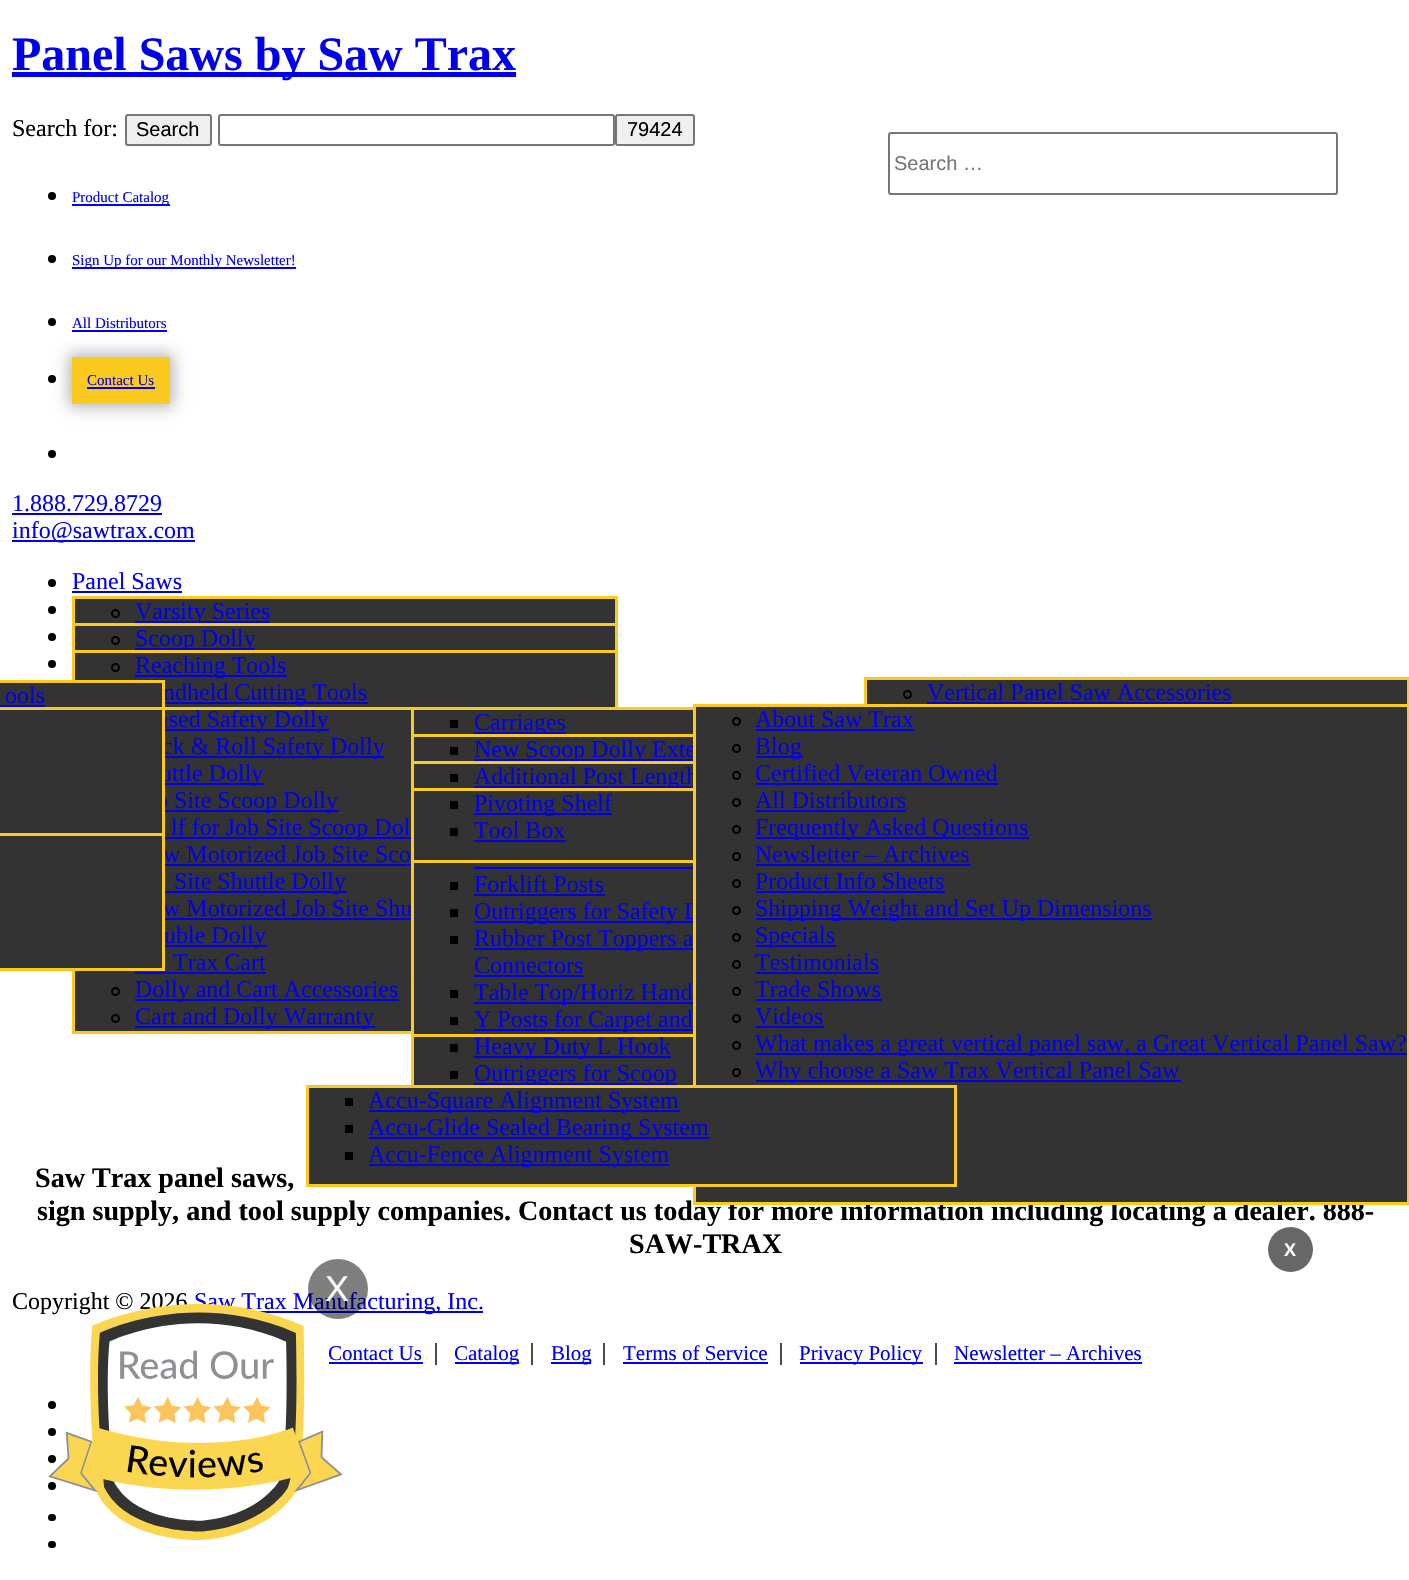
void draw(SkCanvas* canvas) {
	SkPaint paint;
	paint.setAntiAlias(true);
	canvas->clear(0xffffffff);
	paint.setColor(0xff0000ee);
	canvas->drawRect(SkRect::MakeXYWH(12, 72, 504, 5), paint);
	SkFont f1(fontMgr->matchFamilyStyle("Liberation Serif", SkFontStyle::Bold()), 48);
	f1.setSubpixel(true);
	canvas->drawString("Panel Saws by Saw Trax", 12, 70, f1, paint);
	paint.setStroke(true);
	paint.setStrokeWidth(2);
	paint.setColor(0xff767676);
	canvas->drawRoundRect(SkRect::MakeXYWH(219, 115, 395, 30), 2, 2, paint);
	SkFont f2(fontMgr->matchFamilyStyle("Liberation Serif", SkFontStyle::Normal()), 24);
	f2.setSubpixel(true);
	paint.setStroke(false);
	paint.setColor(0xff000000);
	canvas->drawString("Search for:", 12, 136, f2, paint);
	paint.setStroke(true);
	paint.setColor(0xff767676);
	canvas->drawRoundRect(SkRect::MakeXYWH(889, 133, 448, 61), 2, 2, paint);
	SkFont f3(fontMgr->matchFamilyStyle("Liberation Sans", SkFontStyle::Normal()), 20);
	f3.setSubpixel(true);
	paint.setStroke(false);
	paint.setColor(0xff757575);
	canvas->drawString("Search …", 894, 170, f3, paint);
	paint.setColor(0xffefefef);
	canvas->drawRoundRect(SkRect::MakeXYWH(126, 115, 85, 30), 2, 2, paint);
	paint.setStroke(true);
	paint.setColor(0xff767676);
	canvas->drawRoundRect(SkRect::MakeXYWH(126, 115, 85, 30), 2, 2, paint);
	paint.setStroke(false);
	paint.setColor(0xff000000);
	canvas->drawString("Search", 136, 136, f3, paint);
	paint.setColor(0xffefefef);
	canvas->drawRoundRect(SkRect::MakeXYWH(616, 115, 78, 30), 2, 2, paint);
	paint.setStroke(true);
	paint.setColor(0xff767676);
	canvas->drawRoundRect(SkRect::MakeXYWH(616, 115, 78, 30), 2, 2, paint);
	paint.setStroke(false);
	paint.setColor(0xff000000);
	canvas->drawString("79424", 627, 136, f3, paint);
	canvas->drawCircle(52, 196, 4, paint);
	paint.setColor(0xff0000ee);
	canvas->drawRect(SkRect::MakeXYWH(72, 204, 98, 2), paint);
	SkFont f4(fontMgr->matchFamilyStyle("Liberation Serif", SkFontStyle::Normal()), 15);
	f4.setSubpixel(true);
	canvas->drawString("Product Catalog", 72, 202, f4, paint);
	paint.setColor(0xff000000);
	canvas->drawCircle(52, 259, 4, paint);
	paint.setColor(0xff0000ee);
	canvas->drawRect(SkRect::MakeXYWH(72, 267, 224, 2), paint);
	canvas->drawString("Sign Up for our Monthly Newsletter!", 72, 265, f4, paint);
	paint.setColor(0xff000000);
	canvas->drawCircle(52, 322, 4, paint);
	paint.setColor(0xff0000ee);
	canvas->drawString("All Distributors", 72, 328, f4, paint);
	canvas->drawRect(SkRect::MakeXYWH(72, 330, 95, 2), paint);
	paint.setColor(0xff000000);
	canvas->drawCircle(52, 379, 4, paint);
	paint.setColor(0x4d000000);
	paint.setMaskFilter(SkMaskFilter::MakeBlur(kNormal_SkBlurStyle, 7.5));
	canvas->drawRect(SkRect::MakeXYWH(69, 354, 104, 53), paint);
	paint.setMaskFilter(nullptr);
	paint.setColor(0xfffaca1e);
	canvas->drawRect(SkRect::MakeXYWH(72, 357, 98, 47), paint);
	paint.setColor(0xff0000ee);
	canvas->drawString("Contact Us", 87, 385, f4, paint);
	canvas->drawRect(SkRect::MakeXYWH(87, 387, 68, 2), paint);
	paint.setColor(0xff000000);
	canvas->drawCircle(52, 454, 4, paint);
	paint.setColor(0xff0000ee);
	canvas->drawString("1.888.729.8729", 12, 511, f2, paint);
	canvas->drawRect(SkRect::MakeXYWH(12, 513, 150, 2), paint);
	canvas->drawRect(SkRect::MakeXYWH(12, 540, 183, 2), paint);
	canvas->drawString("info@sawtrax.com", 12, 538, f2, paint);
	paint.setColor(0xff000000);
	canvas->drawCircle(52, 583, 4, paint);
	paint.setColor(0xff0000ee);
	canvas->drawString("Panel Saws", 72, 589, f2, paint);
	canvas->drawRect(SkRect::MakeXYWH(72, 591, 110, 2), paint);
	paint.setColor(0xff333333);
	canvas->drawRect(SkRect::MakeXYWH(75, 599, 540, 24), paint);
	paint.setStroke(true);
	paint.setStrokeWidth(3);
	paint.setColor(0xfffaca1e);
	canvas->drawRect(SkRect::MakeXYWH(73.5, 597.5, 543, 300), paint);
	paint.setStrokeWidth(2);
	paint.setColor(0xff000000);
	canvas->drawCircle(115.5, 613.5, 3.5, paint);
	paint.setStroke(false);
	paint.setColor(0xff0000ee);
	canvas->drawRect(SkRect::MakeXYWH(135, 621, 135, 2), paint);
	canvas->drawString("Varsity Series", 135, 619, f2, paint);
	paint.setColor(0xff000000);
	canvas->drawCircle(52, 610, 4, paint);
	paint.setColor(0xff333333);
	canvas->drawRect(SkRect::MakeXYWH(73.5, 624.5, 543, 408), paint);
	paint.setStroke(true);
	paint.setStrokeWidth(3);
	paint.setColor(0xfffaca1e);
	canvas->drawRect(SkRect::MakeXYWH(73.5, 624.5, 543, 408), paint);
	paint.setStrokeWidth(2);
	paint.setColor(0xff000000);
	canvas->drawCircle(115.5, 640.5, 3.5, paint);
	paint.setStroke(false);
	paint.setColor(0xff0000ee);
	canvas->drawRect(SkRect::MakeXYWH(135, 648, 120, 2), paint);
	canvas->drawString("Scoop Dolly", 135, 646, f2, paint);
	canvas->drawRect(SkRect::MakeXYWH(165, 729, 164, 2), paint);
	canvas->drawString("ised Safety Dolly", 162, 727, f2, paint);
	canvas->drawRect(SkRect::MakeXYWH(165, 756, 219, 2), paint);
	canvas->drawString("ck & Roll Safety Dolly", 162, 754, f2, paint);
	canvas->drawRect(SkRect::MakeXYWH(165, 783, 99, 2), paint);
	canvas->drawString("uttle Dolly", 160, 781, f2, paint);
	canvas->drawRect(SkRect::MakeXYWH(165, 810, 174, 2), paint);
	canvas->drawString("b Site Scoop Dolly", 156, 808, f2, paint);
	canvas->drawRect(SkRect::MakeXYWH(165, 837, 246, 2), paint);
	canvas->drawString("lf for Job Site Scoop Dol", 171, 835, f2, paint);
	canvas->drawString("w Motorized Job Site Sco", 163, 862, f2, paint);
	canvas->drawRect(SkRect::MakeXYWH(165, 864, 246, 2), paint);
	canvas->drawRect(SkRect::MakeXYWH(165, 891, 182, 2), paint);
	canvas->drawString("Site Shuttle Dolly", 174, 889, f2, paint);
	canvas->drawString("w Motorized Job Site Shu", 163, 916, f2, paint);
	canvas->drawRect(SkRect::MakeXYWH(165, 918, 246, 2), paint);
	canvas->drawRect(SkRect::MakeXYWH(165, 945, 102, 2), paint);
	canvas->drawString("uble Dolly", 164, 943, f2, paint);
	canvas->drawString("Trax Cart", 173, 970, f2, paint);
	canvas->drawRect(SkRect::MakeXYWH(135, 972, 131, 2), paint);
	paint.setStroke(true);
	paint.setColor(0xff000000);
	canvas->drawCircle(115.5, 991.5, 3.5, paint);
	paint.setStroke(false);
	paint.setColor(0xff0000ee);
	canvas->drawRect(SkRect::MakeXYWH(135, 999, 264, 2), paint);
	canvas->drawString("Dolly and Cart Accessories", 135, 997, f2, paint);
	paint.setStroke(true);
	paint.setColor(0xff000000);
	canvas->drawCircle(115.5, 1018.5, 3.5, paint);
	paint.setStroke(false);
	paint.setColor(0xff0000ee);
	canvas->drawRect(SkRect::MakeXYWH(135, 1026, 240, 2), paint);
	canvas->drawString("Cart and Dolly Warranty", 135, 1024, f2, paint);
	paint.setColor(0xff000000);
	canvas->drawCircle(52, 637, 4, paint);
	paint.setStroke(true);
	paint.setStrokeWidth(3);
	paint.setColor(0xfffaca1e);
	canvas->drawRect(SkRect::MakeXYWH(73.5, 651.5, 543, 57), paint);
	paint.setStrokeWidth(2);
	paint.setColor(0xff000000);
	canvas->drawCircle(115.5, 667.5, 3.5, paint);
	paint.setStroke(false);
	paint.setColor(0xff0000ee);
	canvas->drawRect(SkRect::MakeXYWH(135, 675, 152, 2), paint);
	canvas->drawString("Reaching Tools", 135, 673, f2, paint);
	canvas->drawRect(SkRect::MakeXYWH(165, 702, 203, 2), paint);
	canvas->drawString("ndheld Cutting Tools", 163, 700, f2, paint);
	paint.setColor(0xff333333);
	canvas->drawRect(SkRect::MakeXYWH(-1.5, 681.5, 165, 288), paint);
	paint.setStroke(true);
	paint.setStrokeWidth(3);
	paint.setColor(0xfffaca1e);
	canvas->drawRect(SkRect::MakeXYWH(-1.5, 681.5, 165, 288), paint);
	paint.setStroke(false);
	paint.setColor(0xff0000ee);
	canvas->drawString("ools", 5, 703, f2, paint);
	canvas->drawRect(SkRect::MakeXYWH(0, 705, 45, 2), paint);
	paint.setStroke(true);
	paint.setColor(0xfffaca1e);
	canvas->drawRect(SkRect::MakeXYWH(-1.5, 708.5, 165, 126), paint);
	paint.setStroke(false);
	paint.setColor(0xff000000);
	canvas->drawCircle(52, 664, 4, paint);
	paint.setColor(0xff333333);
	canvas->drawRect(SkRect::MakeXYWH(867, 680, 540, 24), paint);
	paint.setStroke(true);
	paint.setColor(0xfffaca1e);
	canvas->drawRect(SkRect::MakeXYWH(865.5, 678.5, 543, 138), paint);
	paint.setStrokeWidth(2);
	paint.setColor(0xff000000);
	canvas->drawCircle(907.5, 694.5, 3.5, paint);
	paint.setStroke(false);
	paint.setColor(0xff0000ee);
	canvas->drawString("Vertical Panel Saw Accessories", 927, 700, f2, paint);
	canvas->drawRect(SkRect::MakeXYWH(927, 702, 305, 2), paint);
	paint.setColor(0xff333333);
	canvas->drawRect(SkRect::MakeXYWH(615, 710, 78, 24), paint);
	paint.setStroke(true);
	paint.setStrokeWidth(3);
	paint.setColor(0xfffaca1e);
	canvas->drawRect(SkRect::MakeXYWH(412.5, 708.5, 543, 165), paint);
	paint.setStroke(false);
	paint.setColor(0xff000000);
	canvas->drawRect(SkRect::MakeXYWH(450, 720, 8, 8), paint);
	paint.setColor(0xff0000ee);
	canvas->drawRect(SkRect::MakeXYWH(474, 732, 92, 2), paint);
	canvas->drawString("Carriages", 474, 730, f2, paint);
	paint.setColor(0xff333333);
	canvas->drawRect(SkRect::MakeXYWH(414, 737, 279, 348), paint);
	paint.setStroke(true);
	paint.setColor(0xfffaca1e);
	canvas->drawRect(SkRect::MakeXYWH(412.5, 735.5, 543, 435), paint);
	paint.setStroke(false);
	paint.setColor(0xff000000);
	canvas->drawRect(SkRect::MakeXYWH(450, 747, 8, 8), paint);
	paint.setColor(0xff0000ee);
	canvas->drawRect(SkRect::MakeXYWH(474, 759, 219, 2), paint);
	canvas->drawString("New Scoop Dolly Exte", 474, 757, f2, paint);
	paint.setColor(0xff000000);
	canvas->drawRect(SkRect::MakeXYWH(450, 1044, 8, 8), paint);
	paint.setColor(0xff0000ee);
	canvas->drawRect(SkRect::MakeXYWH(474, 1056, 197, 2), paint);
	canvas->drawString("Heavy Duty L Hook", 474, 1054, f2, paint);
	paint.setColor(0xff000000);
	canvas->drawRect(SkRect::MakeXYWH(450, 1071, 8, 8), paint);
	paint.setColor(0xff0000ee);
	canvas->drawRect(SkRect::MakeXYWH(474, 1083, 203, 2), paint);
	canvas->drawString("Outriggers for Scoop", 474, 1081, f2, paint);
	paint.setStroke(true);
	paint.setColor(0xfffaca1e);
	canvas->drawRect(SkRect::MakeXYWH(412.5, 762.5, 543, 273), paint);
	paint.setStroke(false);
	paint.setColor(0xff000000);
	canvas->drawRect(SkRect::MakeXYWH(450, 774, 8, 8), paint);
	paint.setColor(0xff0000ee);
	canvas->drawRect(SkRect::MakeXYWH(474, 786, 219, 2), paint);
	canvas->drawString("Additional Post Length", 474, 784, f2, paint);
	canvas->drawRect(SkRect::MakeXYWH(474, 867, 219, 2), paint);
	paint.setColor(0xff000000);
	canvas->drawRect(SkRect::MakeXYWH(450, 882, 8, 8), paint);
	paint.setColor(0xff0000ee);
	canvas->drawString("Forklift Posts", 474, 892, f2, paint);
	canvas->drawRect(SkRect::MakeXYWH(474, 894, 131, 2), paint);
	paint.setColor(0xff000000);
	canvas->drawRect(SkRect::MakeXYWH(450, 909, 8, 8), paint);
	paint.setColor(0xff0000ee);
	canvas->drawRect(SkRect::MakeXYWH(474, 921, 219, 2), paint);
	canvas->drawString("Outriggers for Safety D", 474, 919, f2, paint);
	paint.setColor(0xff000000);
	canvas->drawRect(SkRect::MakeXYWH(450, 936, 8, 8), paint);
	paint.setColor(0xff0000ee);
	canvas->drawRect(SkRect::MakeXYWH(474, 948, 219, 2), paint);
	canvas->drawString("Rubber Post Toppers a", 474, 946, f2, paint);
	canvas->drawString("Connectors", 474, 973, f2, paint);
	canvas->drawRect(SkRect::MakeXYWH(474, 975, 110, 2), paint);
	paint.setColor(0xff000000);
	canvas->drawRect(SkRect::MakeXYWH(450, 990, 8, 8), paint);
	paint.setColor(0xff0000ee);
	canvas->drawRect(SkRect::MakeXYWH(474, 1002, 219, 2), paint);
	canvas->drawString("Table Top/Horiz Hand", 474, 1000, f2, paint);
	paint.setColor(0xff000000);
	canvas->drawRect(SkRect::MakeXYWH(450, 1017, 8, 8), paint);
	paint.setColor(0xff0000ee);
	canvas->drawRect(SkRect::MakeXYWH(474, 1029, 219, 2), paint);
	canvas->drawString("Y Posts for Carpet and", 474, 1027, f2, paint);
	paint.setStroke(true);
	paint.setColor(0xfffaca1e);
	canvas->drawRect(SkRect::MakeXYWH(412.5, 789.5, 543, 72), paint);
	paint.setStroke(false);
	paint.setColor(0xff000000);
	canvas->drawRect(SkRect::MakeXYWH(450, 801, 8, 8), paint);
	paint.setColor(0xff0000ee);
	canvas->drawRect(SkRect::MakeXYWH(474, 813, 138, 2), paint);
	canvas->drawString("Pivoting Shelf", 474, 811, f2, paint);
	paint.setColor(0xff000000);
	canvas->drawRect(SkRect::MakeXYWH(450, 828, 8, 8), paint);
	paint.setColor(0xff0000ee);
	canvas->drawString("Tool Box", 474, 838, f2, paint);
	canvas->drawRect(SkRect::MakeXYWH(474, 840, 92, 2), paint);
	SkFont f5(fontMgr->matchFamilyStyle("Liberation Serif", SkFontStyle::Bold()), 28.1);
	f5.setSubpixel(true);
	paint.setColor(0xff000000);
	canvas->drawString("sign supply, and tool supply companies. Contact us today for more information including locating a dealer. 888-", 37, 1220, f5, paint);
	paint.setColor(0xff333333);
	canvas->drawRect(SkRect::MakeXYWH(694.5, 705.5, 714, 498), paint);
	paint.setStroke(true);
	paint.setColor(0xfffaca1e);
	canvas->drawRect(SkRect::MakeXYWH(694.5, 705.5, 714, 498), paint);
	paint.setStrokeWidth(2);
	paint.setColor(0xff000000);
	canvas->drawCircle(736.5, 721.5, 3.5, paint);
	paint.setStroke(false);
	paint.setColor(0xff0000ee);
	canvas->drawString("About Saw Trax", 755, 727, f2, paint);
	canvas->drawRect(SkRect::MakeXYWH(756, 729, 158, 2), paint);
	paint.setStroke(true);
	paint.setColor(0xff000000);
	canvas->drawCircle(736.5, 748.5, 3.5, paint);
	paint.setStroke(false);
	paint.setColor(0xff0000ee);
	canvas->drawRect(SkRect::MakeXYWH(756, 756, 47, 2), paint);
	canvas->drawString("Blog", 755, 754, f2, paint);
	paint.setStroke(true);
	paint.setColor(0xff000000);
	canvas->drawCircle(736.5, 775.5, 3.5, paint);
	paint.setStroke(false);
	paint.setColor(0xff0000ee);
	canvas->drawString("Certified Veteran Owned", 755, 781, f2, paint);
	canvas->drawRect(SkRect::MakeXYWH(756, 783, 242, 2), paint);
	paint.setStroke(true);
	paint.setColor(0xff000000);
	canvas->drawCircle(736.5, 802.5, 3.5, paint);
	paint.setStroke(false);
	paint.setColor(0xff0000ee);
	canvas->drawString("All Distributors", 755, 808, f2, paint);
	canvas->drawRect(SkRect::MakeXYWH(756, 810, 150, 2), paint);
	paint.setStroke(true);
	paint.setColor(0xff000000);
	canvas->drawCircle(736.5, 829.5, 3.5, paint);
	paint.setStroke(false);
	paint.setColor(0xff0000ee);
	canvas->drawRect(SkRect::MakeXYWH(756, 837, 273, 2), paint);
	canvas->drawString("Frequently Asked Questions", 755, 835, f2, paint);
	paint.setStroke(true);
	paint.setColor(0xff000000);
	canvas->drawCircle(736.5, 856.5, 3.5, paint);
	paint.setStroke(false);
	paint.setColor(0xff0000ee);
	canvas->drawString("Newsletter – Archives", 755, 862, f2, paint);
	canvas->drawRect(SkRect::MakeXYWH(756, 864, 215, 2), paint);
	paint.setStroke(true);
	paint.setColor(0xff000000);
	canvas->drawCircle(736.5, 883.5, 3.5, paint);
	paint.setStroke(false);
	paint.setColor(0xff0000ee);
	canvas->drawString("Product Info Sheets", 755, 889, f2, paint);
	canvas->drawRect(SkRect::MakeXYWH(756, 891, 189, 2), paint);
	paint.setStroke(true);
	paint.setColor(0xff000000);
	canvas->drawCircle(736.5, 910.5, 3.5, paint);
	paint.setStroke(false);
	paint.setColor(0xff0000ee);
	canvas->drawRect(SkRect::MakeXYWH(756, 918, 396, 2), paint);
	canvas->drawString("Shipping Weight and Set Up Dimensions", 755, 916, f2, paint);
	paint.setStroke(true);
	paint.setColor(0xff000000);
	canvas->drawCircle(736.5, 937.5, 3.5, paint);
	paint.setStroke(false);
	paint.setColor(0xff0000ee);
	canvas->drawRect(SkRect::MakeXYWH(756, 945, 80, 2), paint);
	canvas->drawString("Specials", 755, 943, f2, paint);
	paint.setStroke(true);
	paint.setColor(0xff000000);
	canvas->drawCircle(736.5, 964.5, 3.5, paint);
	paint.setStroke(false);
	paint.setColor(0xff0000ee);
	canvas->drawString("Testimonials", 755, 970, f2, paint);
	canvas->drawRect(SkRect::MakeXYWH(756, 972, 123, 2), paint);
	paint.setStroke(true);
	paint.setColor(0xff000000);
	canvas->drawCircle(736.5, 991.5, 3.5, paint);
	paint.setStroke(false);
	paint.setColor(0xff0000ee);
	canvas->drawString("Trade Shows", 755, 997, f2, paint);
	canvas->drawRect(SkRect::MakeXYWH(756, 999, 126, 2), paint);
	paint.setStroke(true);
	paint.setColor(0xff000000);
	canvas->drawCircle(736.5, 1018.5, 3.5, paint);
	paint.setStroke(false);
	paint.setColor(0xff0000ee);
	canvas->drawString("Videos", 755, 1024, f2, paint);
	canvas->drawRect(SkRect::MakeXYWH(756, 1026, 68, 2), paint);
	paint.setStroke(true);
	paint.setColor(0xff000000);
	canvas->drawCircle(736.5, 1045.5, 3.5, paint);
	paint.setStroke(false);
	paint.setColor(0xff0000ee);
	canvas->drawRect(SkRect::MakeXYWH(756, 1053, 651, 2), paint);
	canvas->drawString("What makes a great vertical panel saw, a Great Vertical Panel Saw?", 755, 1051, f2, paint);
	paint.setStroke(true);
	paint.setColor(0xff000000);
	canvas->drawCircle(736.5, 1072.5, 3.5, paint);
	paint.setStroke(false);
	paint.setColor(0xff0000ee);
	canvas->drawRect(SkRect::MakeXYWH(756, 1080, 425, 2), paint);
	canvas->drawString("Why choose a Saw Trax Vertical Panel Saw", 755, 1078, f2, paint);
	paint.setColor(0xff333333);
	canvas->drawRect(SkRect::MakeXYWH(309, 1088, 387, 96), paint);
	paint.setStroke(true);
	paint.setStrokeWidth(3);
	paint.setColor(0xfffaca1e);
	canvas->drawRect(SkRect::MakeXYWH(307.5, 1086.5, 648, 99), paint);
	paint.setStroke(false);
	paint.setColor(0xff000000);
	canvas->drawRect(SkRect::MakeXYWH(345, 1098, 8, 8), paint);
	paint.setColor(0xff0000ee);
	canvas->drawRect(SkRect::MakeXYWH(369, 1110, 311, 2), paint);
	canvas->drawString("Accu-Square Alignment System", 368, 1108, f2, paint);
	paint.setColor(0xff000000);
	canvas->drawRect(SkRect::MakeXYWH(345, 1125, 8, 8), paint);
	paint.setColor(0xff0000ee);
	canvas->drawRect(SkRect::MakeXYWH(369, 1137, 341, 2), paint);
	canvas->drawString("Accu-Glide Sealed Bearing System", 368, 1135, f2, paint);
	paint.setColor(0xff000000);
	canvas->drawRect(SkRect::MakeXYWH(345, 1152, 8, 8), paint);
	paint.setColor(0xff0000ee);
	canvas->drawRect(SkRect::MakeXYWH(369, 1164, 300, 2), paint);
	canvas->drawString("Accu-Fence Alignment System", 368, 1162, f2, paint);
	paint.setColor(0xff000000);
	canvas->drawString("Saw Trax panel saws,", 35, 1187, f5, paint);
	canvas->drawString("SAW-TRAX", 629, 1253, f5, paint);
	paint.setColor(0xff676767);
	canvas->drawCircle(1290.5, 1249.5, 22.5, paint);
	SkFont f6(fontMgr->matchFamilyStyle("Liberation Sans", SkFontStyle::Bold()), 18);
	f6.setSubpixel(true);
	paint.setColor(0xffffffff);
	canvas->drawString("X", 1284, 1256, f6, paint);
	paint.setColor(0xff000000);
	canvas->drawString("Copyright © 2026", 12, 1309, f2, paint);
	paint.setColor(0xff0000ee);
	canvas->drawRect(SkRect::MakeXYWH(259, 1311, 224, 2), paint);
	canvas->drawString("Saw Trax Manufacturing, Inc.", 194, 1309, f2, paint);
	SkFont f7(fontMgr->matchFamilyStyle("Liberation Serif", SkFontStyle::Normal()), 21);
	f7.setSubpixel(true);
	canvas->drawString("Contact Us", 328, 1360, f7, paint);
	canvas->drawRect(SkRect::MakeXYWH(329, 1362, 94, 2), paint);
	paint.setColor(0xff000000);
	canvas->drawCircle(52, 1405, 4, paint);
	canvas->drawCircle(52, 1432, 4, paint);
	canvas->drawCircle(52, 1459, 4, paint);
	canvas->drawCircle(52, 1486, 4, paint);
	canvas->drawRoundRect(SkRect::MakeXYWH(48, 1514, 8, 7), 3.5, 3.5, paint);
	canvas->drawImageRect(SkImages::DeferredFromEncodedData(SkData::MakeFromFileName("img1.png")), SkRect::MakeXYWH(48, 1304, 295, 236), SkSamplingOptions());
	paint.setColor(0x80000000);
	canvas->drawCircle(338, 1289, 30, paint);
	SkFont f8(fontMgr->matchFamilyStyle("Liberation Sans", SkFontStyle::Normal()), 36);
	f8.setSubpixel(true);
	paint.setColor(0xffffffff);
	canvas->drawString("X", 325, 1301, f8, paint);
	paint.setColor(0xff4b4b4b);
	canvas->drawRect(SkRect::MakeXYWH(435, 1343, 2, 22), paint);
	paint.setColor(0xff0000ee);
	canvas->drawRect(SkRect::MakeXYWH(455, 1362, 64, 2), paint);
	canvas->drawString("Catalog", 454, 1360, f7, paint);
	paint.setColor(0xff4b4b4b);
	canvas->drawRect(SkRect::MakeXYWH(531, 1343, 2, 22), paint);
	paint.setColor(0xff0000ee);
	canvas->drawRect(SkRect::MakeXYWH(551, 1362, 40, 2), paint);
	canvas->drawString("Blog", 551, 1360, f7, paint);
	paint.setColor(0xff4b4b4b);
	canvas->drawRect(SkRect::MakeXYWH(603, 1343, 2, 22), paint);
	paint.setColor(0xff0000ee);
	canvas->drawString("Terms of Service", 623, 1360, f7, paint);
	paint.setColor(0xff4b4b4b);
	canvas->drawRect(SkRect::MakeXYWH(780, 1343, 2, 22), paint);
	paint.setColor(0xff0000ee);
	canvas->drawRect(SkRect::MakeXYWH(623, 1362, 145, 2), paint);
	canvas->drawRect(SkRect::MakeXYWH(800, 1362, 123, 2), paint);
	canvas->drawString("Privacy Policy", 799, 1360, f7, paint);
	paint.setColor(0xff4b4b4b);
	canvas->drawRect(SkRect::MakeXYWH(935, 1343, 2, 22), paint);
	paint.setColor(0xff0000ee);
	canvas->drawString("Newsletter – Archives", 954, 1360, f7, paint);
	canvas->drawRect(SkRect::MakeXYWH(954, 1362, 188, 2), paint);
	paint.setColor(0xff000000);
	canvas->drawRoundRect(SkRect::MakeXYWH(48, 1541, 8, 7), 3.5, 3.5, paint);
}
